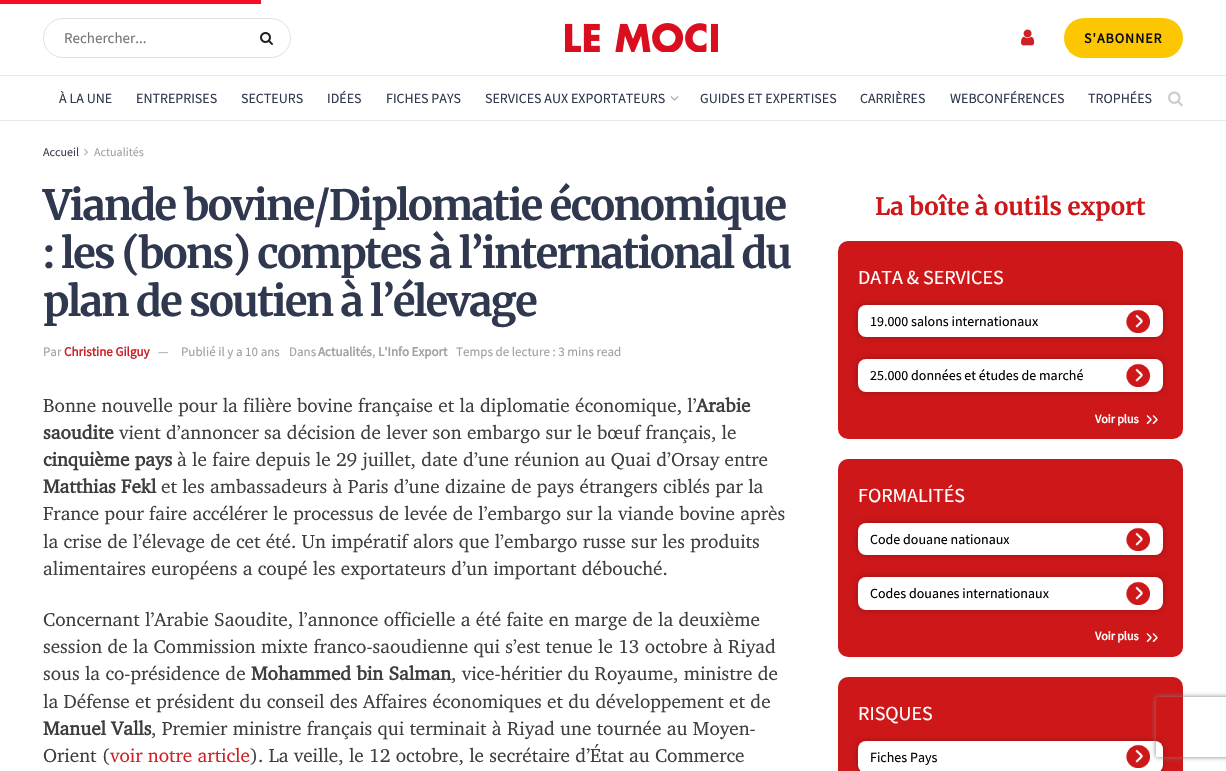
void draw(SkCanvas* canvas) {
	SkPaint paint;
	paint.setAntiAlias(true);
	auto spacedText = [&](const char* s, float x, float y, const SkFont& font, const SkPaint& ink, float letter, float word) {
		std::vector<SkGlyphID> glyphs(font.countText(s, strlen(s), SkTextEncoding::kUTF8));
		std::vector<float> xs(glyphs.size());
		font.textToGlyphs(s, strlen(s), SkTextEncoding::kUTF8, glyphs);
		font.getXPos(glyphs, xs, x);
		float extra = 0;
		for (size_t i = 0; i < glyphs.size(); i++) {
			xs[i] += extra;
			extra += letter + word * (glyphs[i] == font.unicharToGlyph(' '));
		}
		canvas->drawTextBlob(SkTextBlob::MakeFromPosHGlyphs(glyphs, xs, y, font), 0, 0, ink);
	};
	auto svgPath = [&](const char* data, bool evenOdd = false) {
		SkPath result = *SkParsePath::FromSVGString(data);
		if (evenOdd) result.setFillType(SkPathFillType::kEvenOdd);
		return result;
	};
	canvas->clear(0xffffffff);
	paint.setColor(0xfff70d28);
	canvas->drawRect(SkRect::MakeXYWH(0, 0, 261, 4), paint);
	paint.setColor(0xffe8e8e8);
	canvas->drawRect(SkRect::MakeXYWH(0, 75, 1226, 1), paint);
	paint.setStroke(true);
	paint.setStrokeWidth(1);
	paint.setColor(0xffe0e0e0);
	canvas->drawRoundRect(SkRect::MakeXYWH(43.5, 18.5, 247, 39), 19.5, 19.5, paint);
	SkFont f1(fontMgr->matchFamilyStyle("Source Sans Pro", SkFontStyle::Normal()), 15);
	f1.setSubpixel(true);
	paint.setStroke(false);
	paint.setColor(0xff757575);
	canvas->drawString("Rechercher...", 64, 43, f1, paint);
	canvas->drawImageRect(SkImages::DeferredFromEncodedData(SkData::MakeFromFileName("img1.png")), SkRect::MakeXYWH(260, 32, 13, 13), SkSamplingOptions());
	canvas->drawImageRect(SkImages::DeferredFromEncodedData(SkData::MakeFromFileName("img2.png")), SkRect::MakeXYWH(565, 23, 153, 29), SkSamplingOptions());
	canvas->drawImageRect(SkImages::DeferredFromEncodedData(SkData::MakeFromFileName("img3.png")), SkRect::MakeXYWH(1021, 29, 14, 17), SkSamplingOptions());
	paint.setColor(0xfffcc702);
	canvas->drawRoundRect(SkRect::MakeXYWH(1064, 18, 119, 40), 20, 20, paint);
	SkFont f2(fontMgr->matchFamilyStyle("Source Sans Pro", SkFontStyle::Bold()), 14);
	f2.setSubpixel(true);
	paint.setColor(0xff0c0c0c);
	spacedText("S'ABONNER", 1084, 43, f2, paint, 1, 0);
	paint.setColor(0xffe8e8e8);
	canvas->drawRect(SkRect::MakeXYWH(0, 120, 1226, 1), paint);
	SkFont f3(fontMgr->matchFamilyStyle("Source Sans Pro", SkFontStyle::Normal()), 14);
	f3.setSubpixel(true);
	paint.setColor(0xff30384f);
	canvas->drawString("À LA UNE", 59, 103, f3, paint);
	canvas->drawString("ENTREPRISES", 136, 103, f3, paint);
	canvas->drawString("SECTEURS", 241, 103, f3, paint);
	canvas->drawString("IDÉES", 327, 103, f3, paint);
	canvas->drawString("FICHES PAYS", 386, 103, f3, paint);
	canvas->drawString("SERVICES AUX EXPORTATEURS", 485, 103, f3, paint);
	canvas->drawImageRect(SkImages::DeferredFromEncodedData(SkData::MakeFromFileName("img4.png")), SkRect::MakeXYWH(670, 96, 9, 5), SkSamplingOptions());
	canvas->drawString("GUIDES ET EXPERTISES", 700, 103, f3, paint);
	canvas->drawString("CARRIÈRES", 860, 103, f3, paint);
	canvas->drawString("WEBCONFÉRENCES", 950, 103, f3, paint);
	canvas->drawString("TROPHÉES", 1088, 103, f3, paint);
	canvas->drawImageRect(SkImages::DeferredFromEncodedData(SkData::MakeFromFileName("img5.png")), SkRect::MakeXYWH(1168, 91, 15, 16), SkSamplingOptions());
	SkFont f4(fontMgr->matchFamilyStyle("Source Sans Pro", SkFontStyle::Normal()), 12);
	f4.setSubpixel(true);
	paint.setColor(0xff393e4f);
	canvas->drawString("Accueil", 43, 156, f4, paint);
	canvas->drawImageRect(SkImages::DeferredFromEncodedData(SkData::MakeFromFileName("img6.png")), SkRect::MakeXYWH(84, 148, 4, 8), SkSamplingOptions());
	paint.setColor(0xffa0a0a0);
	canvas->drawString("Actualités", 94, 156, f4, paint);
	SkFont f5(fontMgr->matchFamilyStyle("Merriweather", SkFontStyle::Bold()), 41.6);
	f5.setSubpixel(true);
	paint.setColor(0xff30384f);
	spacedText("Viande bovine/Diplomatie économique", 43, 220, f5, paint, -1.65, 0);
	spacedText(": les (bons) comptes à l’international du", 43, 268, f5, paint, -1.65, 0);
	spacedText("plan de soutien à l’élevage", 43, 316, f5, paint, -1.65, 0);
	SkFont f6(fontMgr->matchFamilyStyle("Source Sans Pro", SkFontStyle::Normal()), 13);
	f6.setSubpixel(true);
	paint.setColor(0xffa0a0a0);
	canvas->drawString("Par", 43, 356, f6, paint);
	SkFont f7(fontMgr->matchFamilyStyle("Source Sans Pro", SkFontStyle::Bold()), 13);
	f7.setSubpixel(true);
	paint.setColor(0xffcf2027);
	canvas->drawString("Christine Gilguy", 64, 356, f7, paint);
	paint.setColor(0xffa0a0a0);
	canvas->drawString("—", 158, 356, f6, paint);
	canvas->drawString("Publié il y a 10 ans", 181, 356, f6, paint);
	canvas->drawString("Dans", 289, 356, f6, paint);
	canvas->drawString("Actualités", 318, 356, f7, paint);
	canvas->drawString(",", 372, 356, f6, paint);
	canvas->drawString("L'Info Export", 378, 356, f7, paint);
	canvas->drawString("Temps de lecture : 3 mins read", 456, 356, f6, paint);
	SkFont f8(fontMgr->matchFamilyStyle("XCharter", SkFontStyle::Normal()), 19.2);
	f8.setSubpixel(true);
	paint.setColor(0xff3d3e40);
	canvas->drawString("Bonne nouvelle pour la filière bovine française et la diplomatie économique, l’", 43, 412, f8, paint);
	SkFont f9(fontMgr->matchFamilyStyle("XCharter", SkFontStyle::Bold()), 19.2);
	f9.setSubpixel(true);
	canvas->drawString("Arabie", 696, 412, f9, paint);
	canvas->drawString("saoudite", 43, 439, f9, paint);
	canvas->drawString("vient d’annoncer sa décision de lever son embargo sur le bœuf français, le", 119, 439, f8, paint);
	canvas->drawString("cinquième pays", 43, 466, f9, paint);
	canvas->drawString("à le faire depuis le 29 juillet, date d’une réunion au Quai d’Orsay entre", 177, 466, f8, paint);
	canvas->drawString("Matthias Fekl", 43, 493, f9, paint);
	canvas->drawString("et les ambassadeurs à Paris d’une dizaine de pays étrangers ciblés par la", 161, 493, f8, paint);
	canvas->drawString("France pour faire accélérer le processus de levée de l’embargo sur la viande bovine après", 43, 520, f8, paint);
	canvas->drawString("la crise de l’élevage de cet été. Un impératif alors que l’embargo russe sur les produits", 43, 548, f8, paint);
	canvas->drawString("alimentaires européens a coupé les exportateurs d’un important débouché.", 43, 575, f8, paint);
	canvas->drawString("Concernant l’Arabie Saoudite, l’annonce officielle a été faite en marge de la deuxième", 43, 626, f8, paint);
	canvas->drawString("session de la Commission mixte franco-saoudienne qui s’est tenue le 13 octobre à Riyad", 43, 653, f8, paint);
	canvas->drawString("sous la co-présidence de", 43, 680, f8, paint);
	canvas->drawString("Mohammed bin Salman", 251, 680, f9, paint);
	canvas->drawString(", vice-héritier du Royaume, ministre de", 451, 680, f8, paint);
	canvas->drawString("la Défense et président du conseil des Affaires économiques et du développement et de", 43, 708, f8, paint);
	canvas->drawString("Manuel Valls", 43, 735, f9, paint);
	canvas->drawString(", Premier ministre français qui terminait à Riyad une tournée au Moyen-", 151, 735, f8, paint);
	canvas->drawString("Orient (", 43, 762, f8, paint);
	paint.setColor(0xffcf2027);
	canvas->drawString("voir notre article", 110, 762, f8, paint);
	paint.setColor(0xff3d3e40);
	canvas->drawString("). La veille, le 12 octobre, le secrétaire d’État au Commerce", 250, 762, f8, paint);
	SkFont f10(fontMgr->matchFamilyStyle("Merriweather", SkFontStyle::Bold()), 24);
	f10.setSubpixel(true);
	paint.setColor(0xffcd1719);
	canvas->drawString("La boîte à outils export", 875, 215, f10, paint);
	canvas->drawRoundRect(SkRect::MakeXYWH(838, 241, 345, 198), 10, 10, paint);
	SkFont f11(fontMgr->matchFamilyStyle("Source Sans Pro", SkFontStyle::Normal()), 20);
	f11.setSubpixel(true);
	paint.setColor(0xffffffff);
	canvas->drawString("DATA & SERVICES", 858, 284, f11, paint);
	paint.setColor(0x40000000);
	paint.setMaskFilter(SkMaskFilter::MakeBlur(kNormal_SkBlurStyle, 3));
	canvas->drawRoundRect(SkRect::MakeXYWH(858, 305, 305, 32), 8, 8, paint);
	paint.setMaskFilter(nullptr);
	paint.setColor(0xffffffff);
	canvas->drawRoundRect(SkRect::MakeXYWH(858, 305, 305, 32), 8, 8, paint);
	paint.setColor(0xff000000);
	canvas->drawString("19.000 salons internationaux", 870, 326, f3, paint);
	canvas->drawImageRect(SkImages::DeferredFromEncodedData(SkData::MakeFromFileName("img7.png")), SkRect::MakeXYWH(1126, 309, 24, 24), SkSamplingOptions());
	paint.setColor(0x40000000);
	paint.setMaskFilter(SkMaskFilter::MakeBlur(kNormal_SkBlurStyle, 3));
	canvas->drawRoundRect(SkRect::MakeXYWH(858, 359, 305, 33), 8, 8, paint);
	paint.setMaskFilter(nullptr);
	paint.setColor(0xffffffff);
	canvas->drawRoundRect(SkRect::MakeXYWH(858, 359, 305, 33), 8, 8, paint);
	paint.setColor(0xff000000);
	canvas->drawString("25.000 données et études de marché", 870, 380, f3, paint);
	canvas->drawImageRect(SkImages::DeferredFromEncodedData(SkData::MakeFromFileName("img8.png")), SkRect::MakeXYWH(1126, 363, 24, 24), SkSamplingOptions());
	SkFont f12(fontMgr->matchFamilyStyle("Source Sans Pro", SkFontStyle::Bold()), 12);
	f12.setSubpixel(true);
	paint.setColor(0xffffffff);
	canvas->drawString("Voir plus", 1095, 423, f12, paint);
	canvas->drawImageRect(SkImages::DeferredFromEncodedData(SkData::MakeFromFileName("img9.png")), SkRect::MakeXYWH(1146, 415, 12, 9), SkSamplingOptions());
	paint.setColor(0xffcd1719);
	canvas->drawRoundRect(SkRect::MakeXYWH(838, 459, 345, 198), 10, 10, paint);
	paint.setColor(0xffffffff);
	canvas->drawString("FORMALITÉS", 858, 502, f11, paint);
	paint.setColor(0x40000000);
	paint.setMaskFilter(SkMaskFilter::MakeBlur(kNormal_SkBlurStyle, 3));
	canvas->drawRoundRect(SkRect::MakeXYWH(858, 523, 305, 32), 8, 8, paint);
	paint.setMaskFilter(nullptr);
	paint.setColor(0xffffffff);
	canvas->drawRoundRect(SkRect::MakeXYWH(858, 523, 305, 32), 8, 8, paint);
	paint.setColor(0xff000000);
	canvas->drawString("Code douane nationaux", 870, 544, f3, paint);
	canvas->drawImageRect(SkImages::DeferredFromEncodedData(SkData::MakeFromFileName("img8.png")), SkRect::MakeXYWH(1126, 527, 24, 24), SkSamplingOptions());
	paint.setColor(0x40000000);
	paint.setMaskFilter(SkMaskFilter::MakeBlur(kNormal_SkBlurStyle, 3));
	canvas->drawRoundRect(SkRect::MakeXYWH(858, 577, 305, 33), 8, 8, paint);
	paint.setMaskFilter(nullptr);
	paint.setColor(0xffffffff);
	canvas->drawRoundRect(SkRect::MakeXYWH(858, 577, 305, 33), 8, 8, paint);
	paint.setColor(0xff000000);
	canvas->drawString("Codes douanes internationaux", 870, 598, f3, paint);
	canvas->drawImageRect(SkImages::DeferredFromEncodedData(SkData::MakeFromFileName("img8.png")), SkRect::MakeXYWH(1126, 581, 24, 24), SkSamplingOptions());
	paint.setColor(0xffffffff);
	canvas->drawString("Voir plus", 1095, 640, f12, paint);
	canvas->drawImageRect(SkImages::DeferredFromEncodedData(SkData::MakeFromFileName("img9.png")), SkRect::MakeXYWH(1146, 633, 12, 9), SkSamplingOptions());
	paint.setColor(0xffcd1719);
	canvas->drawRoundRect(SkRect::MakeXYWH(838, 677, 345, 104), 10, 10, paint);
	paint.setColor(0xffffffff);
	canvas->drawString("RISQUES", 858, 720, f11, paint);
	paint.setColor(0x40000000);
	paint.setMaskFilter(SkMaskFilter::MakeBlur(kNormal_SkBlurStyle, 3));
	canvas->drawRoundRect(SkRect::MakeXYWH(858, 741, 305, 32), 8, 8, paint);
	paint.setMaskFilter(nullptr);
	paint.setColor(0xffffffff);
	canvas->drawRoundRect(SkRect::MakeXYWH(858, 741, 305, 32), 8, 8, paint);
	paint.setColor(0xff000000);
	canvas->drawString("Fiches Pays", 870, 762, f3, paint);
	canvas->drawImageRect(SkImages::DeferredFromEncodedData(SkData::MakeFromFileName("img8.png")), SkRect::MakeXYWH(1126, 744, 24, 24), SkSamplingOptions());
	canvas->save();
	canvas->clipPath(svgPath("M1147 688H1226V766H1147ZM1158 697H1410C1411 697 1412 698 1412 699V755C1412 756 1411 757 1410 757H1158C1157 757 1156 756 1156 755V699C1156 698 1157 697 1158 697Z", true), true);
	paint.setColor(0xff808080);
	paint.setMaskFilter(SkMaskFilter::MakeBlur(kNormal_SkBlurStyle, 2.5));
	canvas->drawRoundRect(SkRect::MakeXYWH(1156, 697, 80, 60), 2, 2, paint);
	paint.setMaskFilter(nullptr);
	canvas->restore();
}
